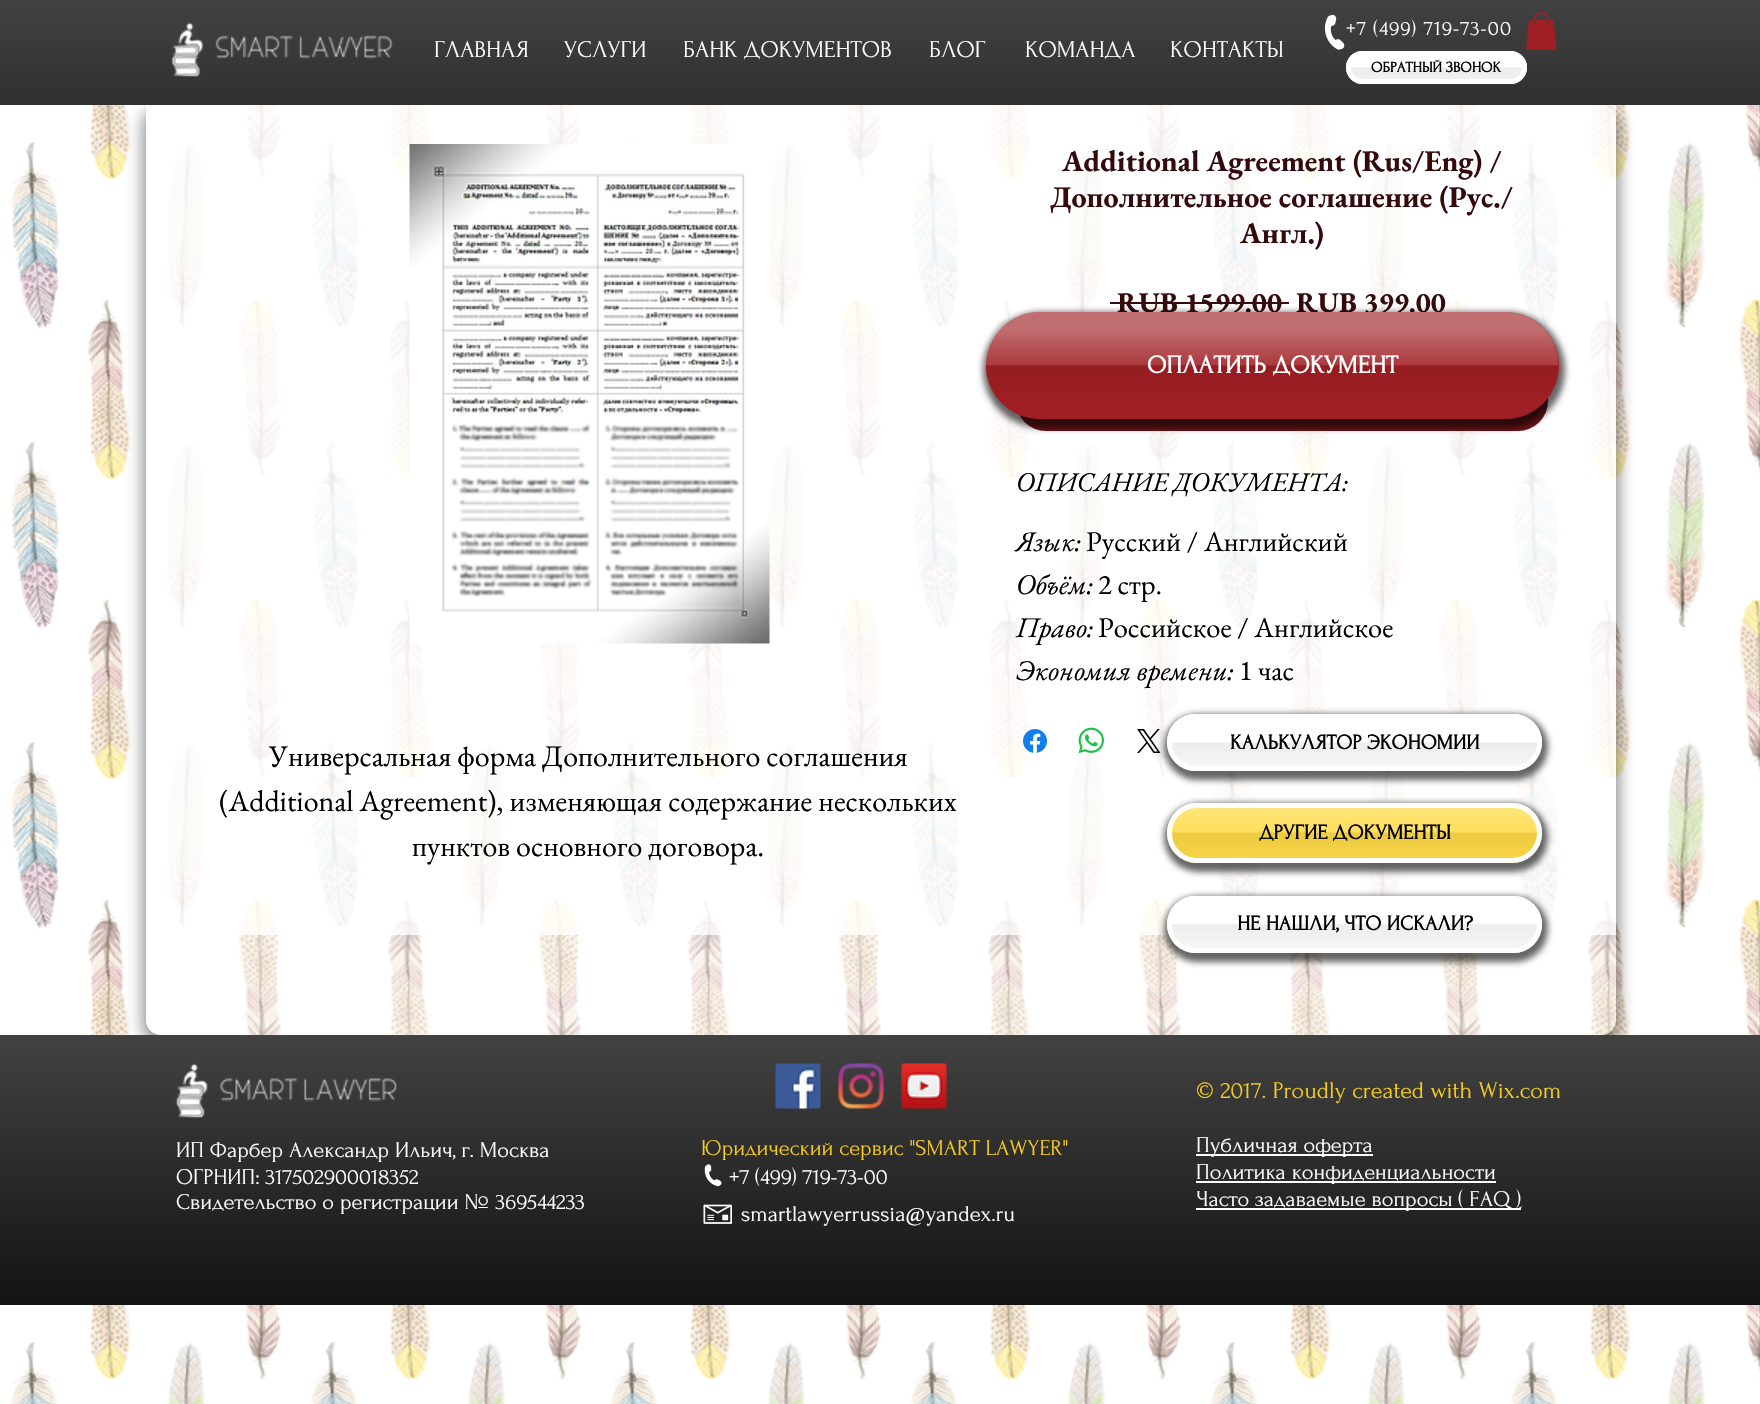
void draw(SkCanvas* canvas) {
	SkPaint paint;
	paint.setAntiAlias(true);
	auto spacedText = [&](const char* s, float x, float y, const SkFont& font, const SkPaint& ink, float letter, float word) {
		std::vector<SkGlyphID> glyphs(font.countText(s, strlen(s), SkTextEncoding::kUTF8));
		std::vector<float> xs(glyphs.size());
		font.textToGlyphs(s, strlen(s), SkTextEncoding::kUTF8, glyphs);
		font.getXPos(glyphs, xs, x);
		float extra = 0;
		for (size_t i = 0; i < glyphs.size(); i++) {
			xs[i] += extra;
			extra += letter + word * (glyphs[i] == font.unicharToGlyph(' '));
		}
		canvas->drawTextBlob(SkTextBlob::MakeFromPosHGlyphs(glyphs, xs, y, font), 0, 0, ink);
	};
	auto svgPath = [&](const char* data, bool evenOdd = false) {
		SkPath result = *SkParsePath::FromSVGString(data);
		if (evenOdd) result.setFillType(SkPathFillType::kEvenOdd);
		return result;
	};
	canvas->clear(0xffffffff);
	canvas->drawImageRect(SkImages::DeferredFromEncodedData(SkData::MakeFromFileName("img23.png")), SkRect::MakeXYWH(10, 105, 1750, 1299), SkSamplingOptions());
	canvas->save();
	canvas->clipPath(svgPath("M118 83H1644V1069H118ZM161 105H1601C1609.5 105 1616 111.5 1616 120V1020C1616 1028.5 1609.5 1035 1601 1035H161C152.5 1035 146 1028.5 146 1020V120C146 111.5 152.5 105 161 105Z", true), true);
	paint.setColor(0x73000000);
	paint.setMaskFilter(SkMaskFilter::MakeBlur(kNormal_SkBlurStyle, 8));
	canvas->drawRoundRect(SkRect::MakeXYWH(143, 108, 1476, 936), 18, 18, paint);
	paint.setMaskFilter(nullptr);
	canvas->restore();
	paint.setColor(0xff000000);
	canvas->drawRect(SkRect::MakeXYWH(0, 0, 1760, 105), paint);
	canvas->drawImageRect(SkImages::DeferredFromEncodedData(SkData::MakeFromFileName("img1.png")), SkRect::MakeXYWH(0, 0, 1760, 105), SkSamplingOptions());
	canvas->drawImageRect(SkImages::DeferredFromEncodedData(SkData::MakeFromFileName("img2.png")), SkRect::MakeXYWH(171, 22, 32, 55), SkSamplingOptions());
	canvas->drawImageRect(SkImages::DeferredFromEncodedData(SkData::MakeFromFileName("img3.png")), SkRect::MakeXYWH(215, 35, 178, 24), SkSamplingOptions());
	SkFont f1(fontMgr->matchFamilyStyle("Forum", SkFontStyle::Normal()), 24);
	f1.setSubpixel(true);
	paint.setColor(0xffffffff);
	canvas->drawString("ГЛАВНАЯ", 434, 57, f1, paint);
	canvas->drawString("УСЛУГИ", 564, 57, f1, paint);
	canvas->drawString("БАНК ДОКУМЕНТОВ", 683, 57, f1, paint);
	canvas->drawString("БЛОГ", 929, 57, f1, paint);
	canvas->drawString("КОМАНДА", 1025, 57, f1, paint);
	canvas->drawString("КОНТАКТЫ", 1170, 57, f1, paint);
	canvas->drawImageRect(SkImages::DeferredFromEncodedData(SkData::MakeFromFileName("img4.png")), SkRect::MakeXYWH(1324, 14, 21, 36), SkSamplingOptions());
	SkFont f2(fontMgr->matchFamilyStyle("Forum", SkFontStyle::Normal()), 21);
	f2.setSubpixel(true);
	spacedText("+7 (499) 719-73-00", 1346, 35, f2, paint, 1, 0);
	canvas->drawImageRect(SkImages::DeferredFromEncodedData(SkData::MakeFromFileName("img5.png")), SkRect::MakeXYWH(1526, 12, 31, 38), SkSamplingOptions());
	canvas->drawRoundRect(SkRect::MakeXYWH(1346, 51, 181, 33), 16.5, 16.5, paint);
	canvas->drawImageRect(SkImages::DeferredFromEncodedData(SkData::MakeFromFileName("img6.png")), SkRect::MakeXYWH(1346, 51, 181, 33), SkSamplingOptions());
	paint.setStroke(true);
	paint.setStrokeWidth(5);
	canvas->drawRoundRect(SkRect::MakeXYWH(1348.5, 53.5, 176, 28), 14, 14, paint);
	SkFont f3(fontMgr->matchFamilyStyle("Forum", SkFontStyle::Bold()), 15);
	f3.setSubpixel(true);
	paint.setStroke(false);
	paint.setColor(0xff000000);
	canvas->drawString("ОБРАТНЫЙ ЗВОНОК", 1371, 72, f3, paint);
	paint.setColor(0x59ffffff);
	canvas->drawRoundRect(SkRect::MakeXYWH(146, 105, 1470, 930), 15, 15, paint);
	paint.setColor(0xc4ffffff);
	canvas->drawRect(SkRect::MakeXYWH(146, 105, 1470, 830), paint);
	SkFont f4(fontMgr->matchFamilyStyle("EB Garamond", SkFontStyle::Bold()), 30);
	f4.setSubpixel(true);
	paint.setColor(0xff350a0c);
	canvas->drawString("Additional Agreement (Rus/Eng) /", 1062, 171, f4, paint);
	canvas->drawString("Дополнительное соглашение (Рус./", 1050, 207, f4, paint);
	canvas->drawString("Англ.)", 1240, 243, f4, paint);
	SkFont f5(fontMgr->matchFamilyStyle("EB Garamond", SkFontStyle::Bold()), 28.5);
	f5.setSubpixel(true);
	canvas->drawString("RUB 1599.00", 1117, 312, f5, paint);
	canvas->drawRect(SkRect::MakeXYWH(1110, 302, 179, 2), paint);
	canvas->drawString("RUB 399.00", 1296, 312, f5, paint);
	paint.setColor(0xff6b1518);
	canvas->drawRoundRect(SkRect::MakeXYWH(1016, 368, 532, 63), 30, 30, paint);
	SkFont f6(fontMgr->matchFamilyStyle("EB Garamond", SkFontStyle::Italic()), 27);
	f6.setSubpixel(true);
	paint.setColor(0xff000000);
	canvas->drawString("ОПИСАНИЕ ДОКУМЕНТА:", 1016, 491, f6, paint);
	SkFont f7(fontMgr->matchFamilyStyle("EB Garamond", SkFontStyle::Italic()), 28.5);
	f7.setSubpixel(true);
	canvas->drawString("Язык:", 1016, 551, f7, paint);
	SkFont f8(fontMgr->matchFamilyStyle("EB Garamond", SkFontStyle::Normal()), 28.5);
	f8.setSubpixel(true);
	canvas->drawString("Русский / Английский", 1086, 551, f8, paint);
	canvas->drawString("Объём:", 1016, 594, f7, paint);
	canvas->drawString("2 стр.", 1098, 594, f8, paint);
	canvas->drawString("Право:", 1016, 637, f7, paint);
	canvas->drawString("Российское / Английское", 1098, 637, f8, paint);
	canvas->drawString("Экономия времени:", 1016, 680, f7, paint);
	canvas->drawString("1 час", 1239, 680, f8, paint);
	canvas->drawImageRect(SkImages::DeferredFromEncodedData(SkData::MakeFromFileName("img7.png")), SkRect::MakeXYWH(1023, 729, 24, 24), SkSamplingOptions());
	canvas->drawImageRect(SkImages::DeferredFromEncodedData(SkData::MakeFromFileName("img8.png")), SkRect::MakeXYWH(1078, 727, 26, 27), SkSamplingOptions());
	canvas->drawImageRect(SkImages::DeferredFromEncodedData(SkData::MakeFromFileName("img9.png")), SkRect::MakeXYWH(1137, 729, 24, 24), SkSamplingOptions());
	canvas->drawImageRect(SkImages::DeferredFromEncodedData(SkData::MakeFromFileName("img10.png")), SkRect::MakeXYWH(409, 144, 361, 500), SkSamplingOptions());
	SkFont f9(fontMgr->matchFamilyStyle("EB Garamond", SkFontStyle::Normal()), 30);
	f9.setSubpixel(true);
	canvas->drawString("Универсальная форма Дополнительного соглашения", 269, 766, f9, paint);
	canvas->drawString("(Additional Agreement), изменяющая содержание нескольких", 219, 811, f9, paint);
	canvas->drawString("пунктов основного договора.", 412, 856, f9, paint);
	paint.setColor(0x99000000);
	paint.setMaskFilter(SkMaskFilter::MakeBlur(kNormal_SkBlurStyle, 3));
	canvas->drawRoundRect(SkRect::MakeXYWH(983, 312, 582, 116), 58, 58, paint);
	paint.setMaskFilter(nullptr);
	paint.setColor(0xffa01f24);
	canvas->drawRoundRect(SkRect::MakeXYWH(986, 312, 573, 107), 53.5, 53.5, paint);
	canvas->drawImageRect(SkImages::DeferredFromEncodedData(SkData::MakeFromFileName("img11.png")), SkRect::MakeXYWH(986, 312, 573, 83), SkSamplingOptions());
	SkFont f10(fontMgr->matchFamilyStyle("Forum", SkFontStyle::Bold()), 25.5);
	f10.setSubpixel(true);
	paint.setColor(0xffffffff);
	canvas->drawString("ОПЛАТИТЬ ДОКУМЕНТ", 1147, 373, f10, paint);
	paint.setColor(0x99000000);
	paint.setMaskFilter(SkMaskFilter::MakeBlur(kNormal_SkBlurStyle, 3));
	canvas->drawRoundRect(SkRect::MakeXYWH(1164, 714, 384, 66), 33, 33, paint);
	paint.setMaskFilter(nullptr);
	paint.setColor(0xffffffff);
	canvas->drawRoundRect(SkRect::MakeXYWH(1167, 714, 375, 57), 28.5, 28.5, paint);
	canvas->drawImageRect(SkImages::DeferredFromEncodedData(SkData::MakeFromFileName("img12.png")), SkRect::MakeXYWH(1167, 742, 375, 29), SkSamplingOptions());
	paint.setStroke(true);
	canvas->drawRoundRect(SkRect::MakeXYWH(1169.5, 716.5, 370, 52), 26, 26, paint);
	SkFont f11(fontMgr->matchFamilyStyle("Forum", SkFontStyle::Bold()), 21);
	f11.setSubpixel(true);
	paint.setStroke(false);
	paint.setColor(0xff000000);
	canvas->drawString("КАЛЬКУЛЯТОР ЭКОНОМИИ", 1230, 749, f11, paint);
	paint.setColor(0x99000000);
	paint.setMaskFilter(SkMaskFilter::MakeBlur(kNormal_SkBlurStyle, 3));
	canvas->drawRoundRect(SkRect::MakeXYWH(1164, 803, 384, 69), 34.5, 34.5, paint);
	paint.setMaskFilter(nullptr);
	paint.setColor(0xffffdb47);
	canvas->drawRoundRect(SkRect::MakeXYWH(1167, 803, 375, 60), 30, 30, paint);
	canvas->drawImageRect(SkImages::DeferredFromEncodedData(SkData::MakeFromFileName("img13.png")), SkRect::MakeXYWH(1167, 803, 375, 55), SkSamplingOptions());
	paint.setStroke(true);
	paint.setColor(0xffffffff);
	canvas->drawRoundRect(SkRect::MakeXYWH(1169.5, 805.5, 370, 55), 27.5, 27.5, paint);
	paint.setStroke(false);
	paint.setColor(0xff000000);
	canvas->drawString("ДРУГИЕ ДОКУМЕНТЫ", 1259, 839, f11, paint);
	paint.setColor(0x99000000);
	paint.setMaskFilter(SkMaskFilter::MakeBlur(kNormal_SkBlurStyle, 3));
	canvas->drawRoundRect(SkRect::MakeXYWH(1164, 896, 384, 66), 33, 33, paint);
	paint.setMaskFilter(nullptr);
	paint.setColor(0xffffffff);
	canvas->drawRoundRect(SkRect::MakeXYWH(1167, 896, 375, 57), 28.5, 28.5, paint);
	canvas->drawImageRect(SkImages::DeferredFromEncodedData(SkData::MakeFromFileName("img14.png")), SkRect::MakeXYWH(1167, 895, 375, 53), SkSamplingOptions());
	paint.setStroke(true);
	canvas->drawRoundRect(SkRect::MakeXYWH(1169.5, 898.5, 370, 52), 26, 26, paint);
	paint.setStroke(false);
	paint.setColor(0xff000000);
	canvas->drawString("НЕ НАШЛИ, ЧТО ИСКАЛИ?", 1237, 930, f11, paint);
	canvas->drawRect(SkRect::MakeXYWH(0, 1035, 1760, 270), paint);
	canvas->drawImageRect(SkImages::DeferredFromEncodedData(SkData::MakeFromFileName("img15.png")), SkRect::MakeXYWH(0, 1035, 1760, 270), SkSamplingOptions());
	canvas->drawImageRect(SkImages::DeferredFromEncodedData(SkData::MakeFromFileName("img16.png")), SkRect::MakeXYWH(175, 1063, 33, 55), SkSamplingOptions());
	canvas->drawImageRect(SkImages::DeferredFromEncodedData(SkData::MakeFromFileName("img17.png")), SkRect::MakeXYWH(220, 1078, 177, 24), SkSamplingOptions());
	canvas->drawImageRect(SkImages::DeferredFromEncodedData(SkData::MakeFromFileName("img18.png")), SkRect::MakeXYWH(775, 1063, 46, 46), SkSamplingOptions());
	canvas->drawImageRect(SkImages::DeferredFromEncodedData(SkData::MakeFromFileName("img19.png")), SkRect::MakeXYWH(838, 1063, 46, 46), SkSamplingOptions());
	canvas->drawImageRect(SkImages::DeferredFromEncodedData(SkData::MakeFromFileName("img20.png")), SkRect::MakeXYWH(901, 1063, 46, 46), SkSamplingOptions());
	paint.setColor(0xfff5cc22);
	canvas->drawString("© 2017. Proudly created with Wix.com", 1196, 1098, f1, paint);
	SkFont f12(fontMgr->matchFamilyStyle("Forum", SkFontStyle::Normal()), 22.5);
	f12.setSubpixel(true);
	paint.setColor(0xffffffff);
	canvas->drawString("ИП Фарбер Александр Ильич, г. Москва", 176, 1157, f12, paint);
	canvas->drawString("ОГРНИП: 317502900018352", 176, 1184, f12, paint);
	canvas->drawString("Свидетельство о регистрации № 369544233", 176, 1209, f12, paint);
	paint.setColor(0xfff5cc22);
	canvas->drawString("Юридический сервис \"SMART LAWYER\"", 701, 1155, f12, paint);
	canvas->drawImageRect(SkImages::DeferredFromEncodedData(SkData::MakeFromFileName("img21.png")), SkRect::MakeXYWH(704, 1164, 18, 23), SkSamplingOptions());
	paint.setColor(0xffffffff);
	canvas->drawString("+7 (499) 719-73-00", 729, 1184, f12, paint);
	canvas->drawImageRect(SkImages::DeferredFromEncodedData(SkData::MakeFromFileName("img22.png")), SkRect::MakeXYWH(703, 1204, 29, 20), SkSamplingOptions());
	canvas->drawString("smartlawyerrussia@yandex.ru", 741, 1221, f12, paint);
	canvas->drawRect(SkRect::MakeXYWH(1196, 1154, 177, 2), paint);
	canvas->drawString("Публичная оферта", 1196, 1152, f12, paint);
	canvas->drawRect(SkRect::MakeXYWH(1196, 1181, 300, 2), paint);
	canvas->drawString("Политика конфиденциальности", 1196, 1179, f12, paint);
	canvas->drawRect(SkRect::MakeXYWH(1196, 1208, 325, 2), paint);
	canvas->drawString("Часто задаваемые вопросы ( FAQ )", 1196, 1206, f12, paint);
}
